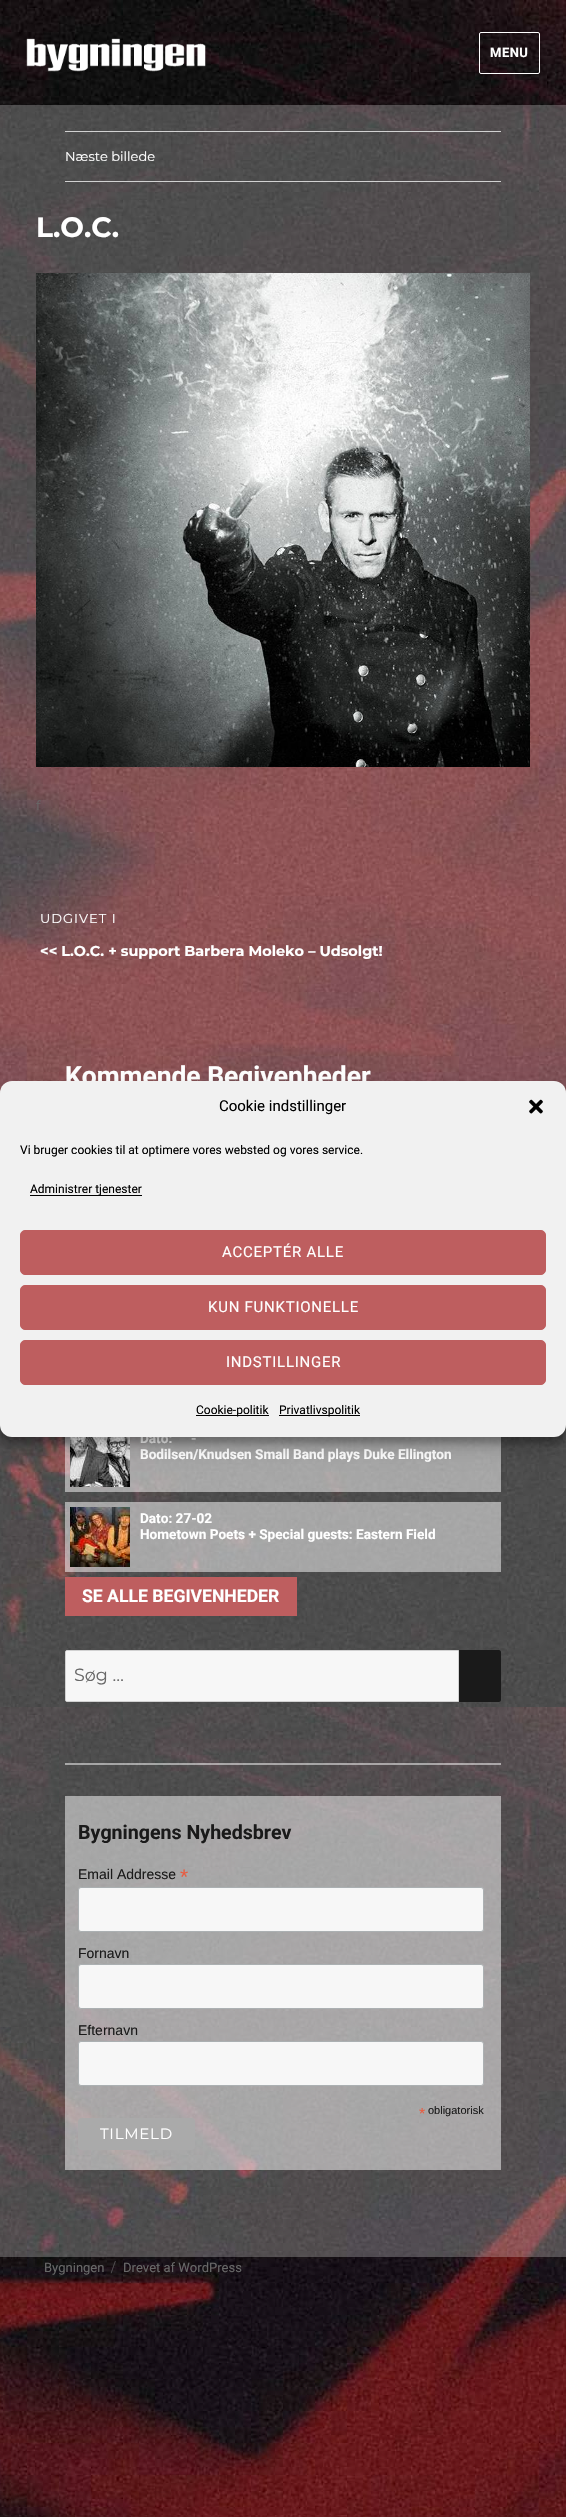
void draw(SkCanvas* canvas) {
	SkPaint paint;
	paint.setAntiAlias(true);
	auto spacedText = [&](const char* s, float x, float y, const SkFont& font, const SkPaint& ink, float letter, float word) {
		std::vector<SkGlyphID> glyphs(font.countText(s, strlen(s), SkTextEncoding::kUTF8));
		std::vector<float> xs(glyphs.size());
		font.textToGlyphs(s, strlen(s), SkTextEncoding::kUTF8, glyphs);
		font.getXPos(glyphs, xs, x);
		float extra = 0;
		for (size_t i = 0; i < glyphs.size(); i++) {
			xs[i] += extra;
			extra += letter + word * (glyphs[i] == font.unicharToGlyph(' '));
		}
		canvas->drawTextBlob(SkTextBlob::MakeFromPosHGlyphs(glyphs, xs, y, font), 0, 0, ink);
	};
	auto svgPath = [&](const char* data, bool evenOdd = false) {
		SkPath result = *SkParsePath::FromSVGString(data);
		if (evenOdd) result.setFillType(SkPathFillType::kEvenOdd);
		return result;
	};
	canvas->clear(0xffffffff);
	canvas->drawImageRect(SkImages::DeferredFromEncodedData(SkData::MakeFromFileName("img1.png")), SkRect::MakeXYWH(0, 0, 566, 2517), SkSamplingOptions());
	canvas->drawImageRect(SkImages::DeferredFromEncodedData(SkData::MakeFromFileName("img2.png")), SkRect::MakeXYWH(26, 38, 180, 34), SkSamplingOptions());
	paint.setStroke(true);
	paint.setStrokeWidth(1);
	paint.setColor(0xffffffff);
	canvas->drawRoundRect(SkRect::MakeXYWH(479.5, 32.5, 60, 41), 1.5, 1.5, paint);
	SkFont f1(fontMgr->matchFamilyStyle("Roboto", SkFontStyle::Bold()), 13);
	f1.setSubpixel(true);
	paint.setStroke(false);
	spacedText("MENU", 490, 57, f1, paint, 0.5, 0);
	paint.setColor(0x40ffffff);
	canvas->drawRect(SkRect::MakeXYWH(0, 105, 566, 2152), paint);
	paint.setColor(0xffd1d1d1);
	canvas->drawRect(SkRect::MakeXYWH(65, 131, 436, 1), paint);
	canvas->drawRect(SkRect::MakeXYWH(65, 181, 436, 1), paint);
	SkFont f2(fontMgr->matchFamilyStyle("Montserrat", SkFontStyle(100, SkFontStyle::kNormal_Width, SkFontStyle::kUpright_Slant)), 13);
	f2.setSubpixel(true);
	paint.setColor(0xffffffff);
	canvas->drawString("Næste billede", 65, 161, f2, paint);
	SkFont f3(fontMgr->matchFamilyStyle("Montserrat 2", SkFontStyle(100, SkFontStyle::kNormal_Width, SkFontStyle::kUpright_Slant)), 28);
	f3.setSubpixel(true);
	canvas->drawString("L.O.C.", 36, 237, f3, paint);
	canvas->drawImageRect(SkImages::DeferredFromEncodedData(SkData::MakeFromFileName("img3.png")), SkRect::MakeXYWH(36, 273, 494, 494), SkSamplingOptions());
	paint.setColor(0xff686868);
	canvas->drawString("f", 36, 810, f2, paint);
	paint.setColor(0xffffffff);
	spacedText("UDGIVET I", 40, 923, f2, paint, 1, 0);
	SkFont f4(fontMgr->matchFamilyStyle("Montserrat 2", SkFontStyle(100, SkFontStyle::kNormal_Width, SkFontStyle::kUpright_Slant)), 14.4);
	f4.setSubpixel(true);
	canvas->drawString("<< L.O.C. + support Barbera Moleko – Udsolgt!", 40, 956, f4, paint);
	SkFont f5(fontMgr->matchFamilyStyle("Roboto", SkFontStyle::Bold()), 26.4);
	f5.setSubpixel(true);
	canvas->drawString("Kommende Begivenheder", 65, 1085, f5, paint);
	paint.setColor(0x80ffffff);
	canvas->drawRect(SkRect::MakeXYWH(65, 1437, 436, 55), paint);
	canvas->drawImageRect(SkImages::DeferredFromEncodedData(SkData::MakeFromFileName("img4.png")), SkRect::MakeXYWH(70, 1437, 60, 50), SkSamplingOptions());
	SkFont f6(fontMgr->matchFamilyStyle("Roboto", SkFontStyle::Bold()), 13.6);
	f6.setSubpixel(true);
	paint.setColor(0xffffffff);
	canvas->drawString("Dato:", 140, 1443, f6, paint);
	canvas->drawString("-", 191, 1443, f6, paint);
	canvas->drawString("Bodilsen/Knudsen Small Band plays Duke Ellington", 140, 1459, f6, paint);
	paint.setColor(0x80ffffff);
	canvas->drawRect(SkRect::MakeXYWH(65, 1502, 436, 70), paint);
	canvas->drawImageRect(SkImages::DeferredFromEncodedData(SkData::MakeFromFileName("img5.png")), SkRect::MakeXYWH(70, 1507, 60, 60), SkSamplingOptions());
	paint.setColor(0xffffffff);
	canvas->drawString("Dato: 27-02", 140, 1523, f6, paint);
	canvas->drawString("Hometown Poets + Special guests: Eastern Field", 140, 1539, f6, paint);
	paint.setColor(0xffbe5e5f);
	canvas->drawRect(SkRect::MakeXYWH(65, 1577, 232, 39), paint);
	SkFont f7(fontMgr->matchFamilyStyle("Roboto", SkFontStyle::Bold()), 17.6);
	f7.setSubpixel(true);
	paint.setColor(0xffffffff);
	canvas->drawString("SE ALLE BEGIVENHEDER", 82, 1602, f7, paint);
	paint.setColor(0xfff7f7f7);
	canvas->drawPath(svgPath("M67 1650.5H458.5V1701.5H67C66 1701.5 65.5 1701 65.5 1700V1652C65.5 1651 66 1650.5 67 1650.5Z"), paint);
	paint.setStroke(true);
	paint.setColor(0xffd1d1d1);
	canvas->drawPath(svgPath("M67 1650.5H458.5V1701.5H67C66 1701.5 65.5 1701 65.5 1700V1652C65.5 1651 66 1650.5 67 1650.5Z"), paint);
	SkFont f8(fontMgr->matchFamilyStyle("Montserrat", SkFontStyle(100, SkFontStyle::kNormal_Width, SkFontStyle::kUpright_Slant)), 17.6);
	f8.setSubpixel(true);
	paint.setStroke(false);
	paint.setColor(0xff686868);
	canvas->drawString("Søg …", 74, 1681, f8, paint);
	paint.setColor(0xff1a1a1a);
	canvas->drawPath(svgPath("M459 1650H499C500 1650 501 1651 501 1652V1700C501 1701 500 1702 499 1702H459Z"), paint);
	paint.setColor(0x80ffffff);
	canvas->drawRect(SkRect::MakeXYWH(65, 1763, 436, 2), paint);
	canvas->drawRect(SkRect::MakeXYWH(65, 1796, 436, 374), paint);
	SkFont f9(fontMgr->matchFamilyStyle("Roboto", SkFontStyle::Bold()), 19.6);
	f9.setSubpixel(true);
	paint.setColor(0xff1a1a1a);
	canvas->drawString("Bygningens Nyhedsbrev", 78, 1839, f9, paint);
	SkFont f10(fontMgr->matchFamilyStyle("Liberation Sans", SkFontStyle::Normal()), 14);
	f10.setSubpixel(true);
	canvas->drawString("Email Addresse", 78, 1879, f10, paint);
	SkFont f11(fontMgr->matchFamilyStyle("Liberation Sans", SkFontStyle::Normal()), 21);
	f11.setSubpixel(true);
	paint.setColor(0xffe85c41);
	canvas->drawString("*", 180, 1884, f11, paint);
	paint.setColor(0xfff7f7f7);
	canvas->drawRoundRect(SkRect::MakeXYWH(78.5, 1887.5, 405, 44), 2.5, 2.5, paint);
	paint.setStroke(true);
	paint.setColor(0xffabb0b2);
	canvas->drawRoundRect(SkRect::MakeXYWH(78.5, 1887.5, 405, 44), 2.5, 2.5, paint);
	paint.setStroke(false);
	paint.setColor(0xff1a1a1a);
	canvas->drawString("Fornavn", 78, 1958, f10, paint);
	paint.setColor(0xfff7f7f7);
	canvas->drawRoundRect(SkRect::MakeXYWH(78.5, 1964.5, 405, 44), 2.5, 2.5, paint);
	paint.setStroke(true);
	paint.setColor(0xffabb0b2);
	canvas->drawRoundRect(SkRect::MakeXYWH(78.5, 1964.5, 405, 44), 2.5, 2.5, paint);
	paint.setStroke(false);
	paint.setColor(0xff1a1a1a);
	canvas->drawString("Efternavn", 78, 2035, f10, paint);
	paint.setColor(0xfff7f7f7);
	canvas->drawRoundRect(SkRect::MakeXYWH(78.5, 2041.5, 405, 44), 2.5, 2.5, paint);
	paint.setStroke(true);
	paint.setColor(0xffabb0b2);
	canvas->drawRoundRect(SkRect::MakeXYWH(78.5, 2041.5, 405, 44), 2.5, 2.5, paint);
	SkFont f12(fontMgr->matchFamilyStyle("Liberation Sans", SkFontStyle::Normal()), 16);
	f12.setSubpixel(true);
	paint.setStroke(false);
	paint.setColor(0xffe85c41);
	canvas->drawString("*", 419, 2119, f12, paint);
	SkFont f13(fontMgr->matchFamilyStyle("Liberation Sans", SkFontStyle::Normal()), 11);
	f13.setSubpixel(true);
	paint.setColor(0xff1a1a1a);
	canvas->drawString("obligatorisk", 428, 2114, f13, paint);
	paint.setColor(0xffaaaaaa);
	canvas->drawRoundRect(SkRect::MakeXYWH(78, 2118, 117, 32), 4, 4, paint);
	SkFont f14(fontMgr->matchFamilyStyle("Montserrat", SkFontStyle(100, SkFontStyle::kNormal_Width, SkFontStyle::kUpright_Slant)), 15);
	f14.setSubpixel(true);
	paint.setColor(0xffffffff);
	spacedText("TILMELD", 100, 2139, f14, paint, 0.75, 0);
	SkFont f15(fontMgr->matchFamilyStyle("Roboto", SkFontStyle::Normal()), 13);
	f15.setSubpixel(true);
	paint.setColor(0xff686868);
	canvas->drawString("Bygningen", 44, 2272, f15, paint);
	paint.setColor(0xff514e50);
	canvas->drawString("/", 111, 2272, f2, paint);
	paint.setColor(0xff686868);
	canvas->drawString("Drevet af WordPress", 123, 2272, f15, paint);
	paint.setColor(0x3b000000);
	paint.setMaskFilter(SkMaskFilter::MakeBlur(kNormal_SkBlurStyle, 3));
	canvas->drawRoundRect(SkRect::MakeXYWH(0, 1087, 566, 356), 12, 12, paint);
	paint.setMaskFilter(nullptr);
	paint.setColor(0x30000000);
	paint.setMaskFilter(SkMaskFilter::MakeBlur(kNormal_SkBlurStyle, 10));
	canvas->drawRoundRect(SkRect::MakeXYWH(0, 1091, 566, 356), 12, 12, paint);
	paint.setMaskFilter(nullptr);
	paint.setColor(0xfff1f1f1);
	canvas->drawRoundRect(SkRect::MakeXYWH(0, 1081, 566, 356), 12, 12, paint);
	SkFont f16(fontMgr->matchFamilyStyle("Roboto", SkFontStyle::Normal()), 15);
	f16.setSubpixel(true);
	paint.setColor(0xff000000);
	canvas->drawString("Cookie indstillinger", 219, 1111, f16, paint);
	canvas->drawImageRect(SkImages::DeferredFromEncodedData(SkData::MakeFromFileName("img6.png")), SkRect::MakeXYWH(529, 1099, 14, 15), SkSamplingOptions());
	SkFont f17(fontMgr->matchFamilyStyle("Roboto", SkFontStyle::Normal()), 12);
	f17.setSubpixel(true);
	canvas->drawString("Vi bruger cookies til at optimere vores websted og vores service.", 20, 1154, f17, paint);
	canvas->drawRect(SkRect::MakeXYWH(30, 1195, 112, 1), paint);
	canvas->drawString("Administrer tjenester", 30, 1193, f17, paint);
	paint.setColor(0xffbe5e5f);
	canvas->drawRoundRect(SkRect::MakeXYWH(20.5, 1230.5, 525, 44), 4.5, 4.5, paint);
	paint.setStroke(true);
	canvas->drawRoundRect(SkRect::MakeXYWH(20.5, 1230.5, 525, 44), 4.5, 4.5, paint);
	paint.setStroke(false);
	paint.setColor(0xffffffff);
	spacedText("ACCEPTÉR ALLE", 222, 1257, f16, paint, 0.75, 0);
	paint.setColor(0xffbe5e5f);
	canvas->drawRoundRect(SkRect::MakeXYWH(20.5, 1285.5, 525, 44), 4.5, 4.5, paint);
	paint.setStroke(true);
	canvas->drawRoundRect(SkRect::MakeXYWH(20.5, 1285.5, 525, 44), 4.5, 4.5, paint);
	paint.setStroke(false);
	paint.setColor(0xffffffff);
	spacedText("KUN FUNKTIONELLE", 208, 1312, f16, paint, 0.75, 0);
	paint.setColor(0xffbe5e5f);
	canvas->drawRoundRect(SkRect::MakeXYWH(20.5, 1340.5, 525, 44), 4.5, 4.5, paint);
	paint.setStroke(true);
	canvas->drawRoundRect(SkRect::MakeXYWH(20.5, 1340.5, 525, 44), 4.5, 4.5, paint);
	paint.setStroke(false);
	paint.setColor(0xffffffff);
	spacedText("INDSTILLINGER", 226, 1367, f16, paint, 0.75, 0);
	paint.setColor(0xff000000);
	canvas->drawRect(SkRect::MakeXYWH(196, 1415, 73, 1), paint);
	canvas->drawString("Cookie-politik", 196, 1414, f17, paint);
	canvas->drawRect(SkRect::MakeXYWH(279, 1415, 81, 1), paint);
	canvas->drawString("Privatlivspolitik", 279, 1414, f17, paint);
}
